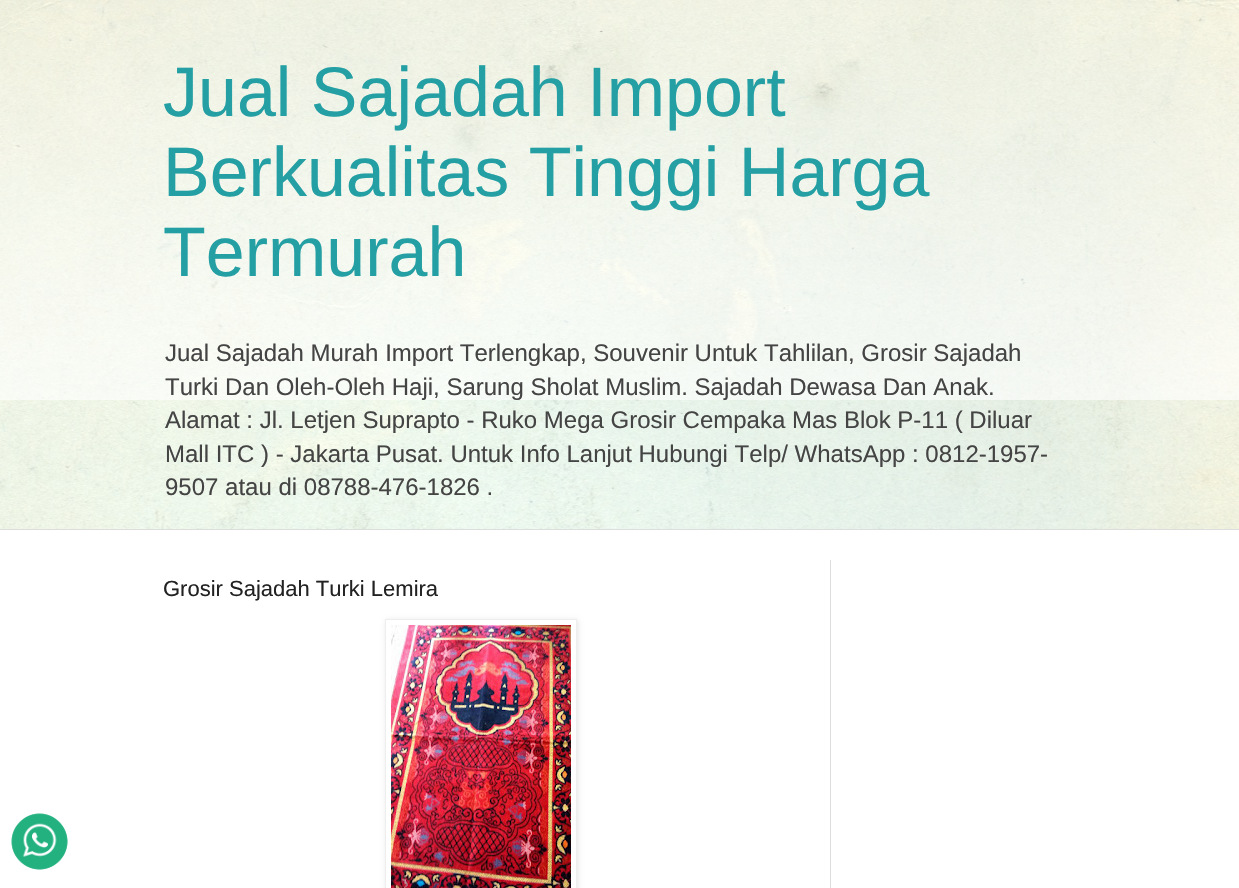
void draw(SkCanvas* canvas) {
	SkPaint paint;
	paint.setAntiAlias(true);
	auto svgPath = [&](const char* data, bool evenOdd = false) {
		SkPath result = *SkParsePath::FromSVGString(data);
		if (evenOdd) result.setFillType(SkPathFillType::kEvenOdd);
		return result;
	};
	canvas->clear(0xffffffff);
	canvas->drawImageRect(SkImages::DeferredFromEncodedData(SkData::MakeFromFileName("img1.png")), SkRect::MakeXYWH(0, 0, 1239, 529), SkSamplingOptions());
	canvas->drawImageRect(SkImages::DeferredFromEncodedData(SkData::MakeFromFileName("img2.png")), SkRect::MakeXYWH(0, 0, 1239, 400), SkSamplingOptions());
	SkFont f1(fontMgr->matchFamilyStyle("Liberation Sans", SkFontStyle::Normal()), 70);
	f1.setSubpixel(true);
	paint.setColor(0xff249fa3);
	canvas->drawString("Jual Sajadah Import", 163, 116, f1, paint);
	canvas->drawString("Berkualitas Tinggi Harga", 163, 196, f1, paint);
	canvas->drawString("Termurah", 163, 276, f1, paint);
	SkFont f2(fontMgr->matchFamilyStyle("Liberation Sans", SkFontStyle::Normal()), 24);
	f2.setSubpixel(true);
	paint.setColor(0xff444444);
	canvas->drawString("Jual Sajadah Murah Import Terlengkap, Souvenir Untuk Tahlilan, Grosir Sajadah", 165, 361, f2, paint);
	canvas->drawString("Turki Dan Oleh-Oleh Haji, Sarung Sholat Muslim. Sajadah Dewasa Dan Anak.", 165, 395, f2, paint);
	canvas->drawString("Alamat : Jl. Letjen Suprapto - Ruko Mega Grosir Cempaka Mas Blok P-11 ( Diluar", 165, 428, f2, paint);
	canvas->drawString("Mall ITC ) - Jakarta Pusat. Untuk Info Lanjut Hubungi Telp/ WhatsApp : 0812-1957-", 165, 462, f2, paint);
	canvas->drawString("9507 atau di 08788-476-1826 .", 165, 495, f2, paint);
	paint.setColor(0xffdddddd);
	canvas->drawRect(SkRect::MakeXYWH(0, 529, 1239, 1), paint);
	SkFont f3(fontMgr->matchFamilyStyle("Liberation Sans", SkFontStyle::Normal()), 22);
	f3.setSubpixel(true);
	paint.setColor(0xff222222);
	canvas->drawString("Grosir Sajadah Turki Lemira", 163, 596, f3, paint);
	canvas->save();
	canvas->clipPath(svgPath("M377 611H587V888H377ZM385 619H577V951H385Z", true), true);
	paint.setColor(0x1a000000);
	paint.setMaskFilter(SkMaskFilter::MakeBlur(kNormal_SkBlurStyle, 2.5));
	canvas->drawRect(SkRect::MakeXYWH(386, 620, 192, 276), paint);
	paint.setMaskFilter(nullptr);
	canvas->restore();
	paint.setStroke(true);
	paint.setStrokeWidth(1);
	paint.setColor(0xffeeeeee);
	canvas->drawRect(SkRect::MakeXYWH(385.5, 619.5, 191, 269), paint);
	canvas->drawImageRect(SkImages::DeferredFromEncodedData(SkData::MakeFromFileName("img3.png")), SkRect::MakeXYWH(391, 625, 180, 263), SkSamplingOptions());
	canvas->drawImageRect(SkImages::DeferredFromEncodedData(SkData::MakeFromFileName("img4.png")), SkRect::MakeXYWH(11, 813, 57, 57), SkSamplingOptions());
	canvas->drawImageRect(SkImages::DeferredFromEncodedData(SkData::MakeFromFileName("img5.png")), SkRect::MakeXYWH(11, 813, 57, 57), SkSamplingOptions());
	paint.setStroke(false);
	paint.setColor(0xffdddddd);
	canvas->drawRect(SkRect::MakeXYWH(830, 560, 1, 328), paint);
}
